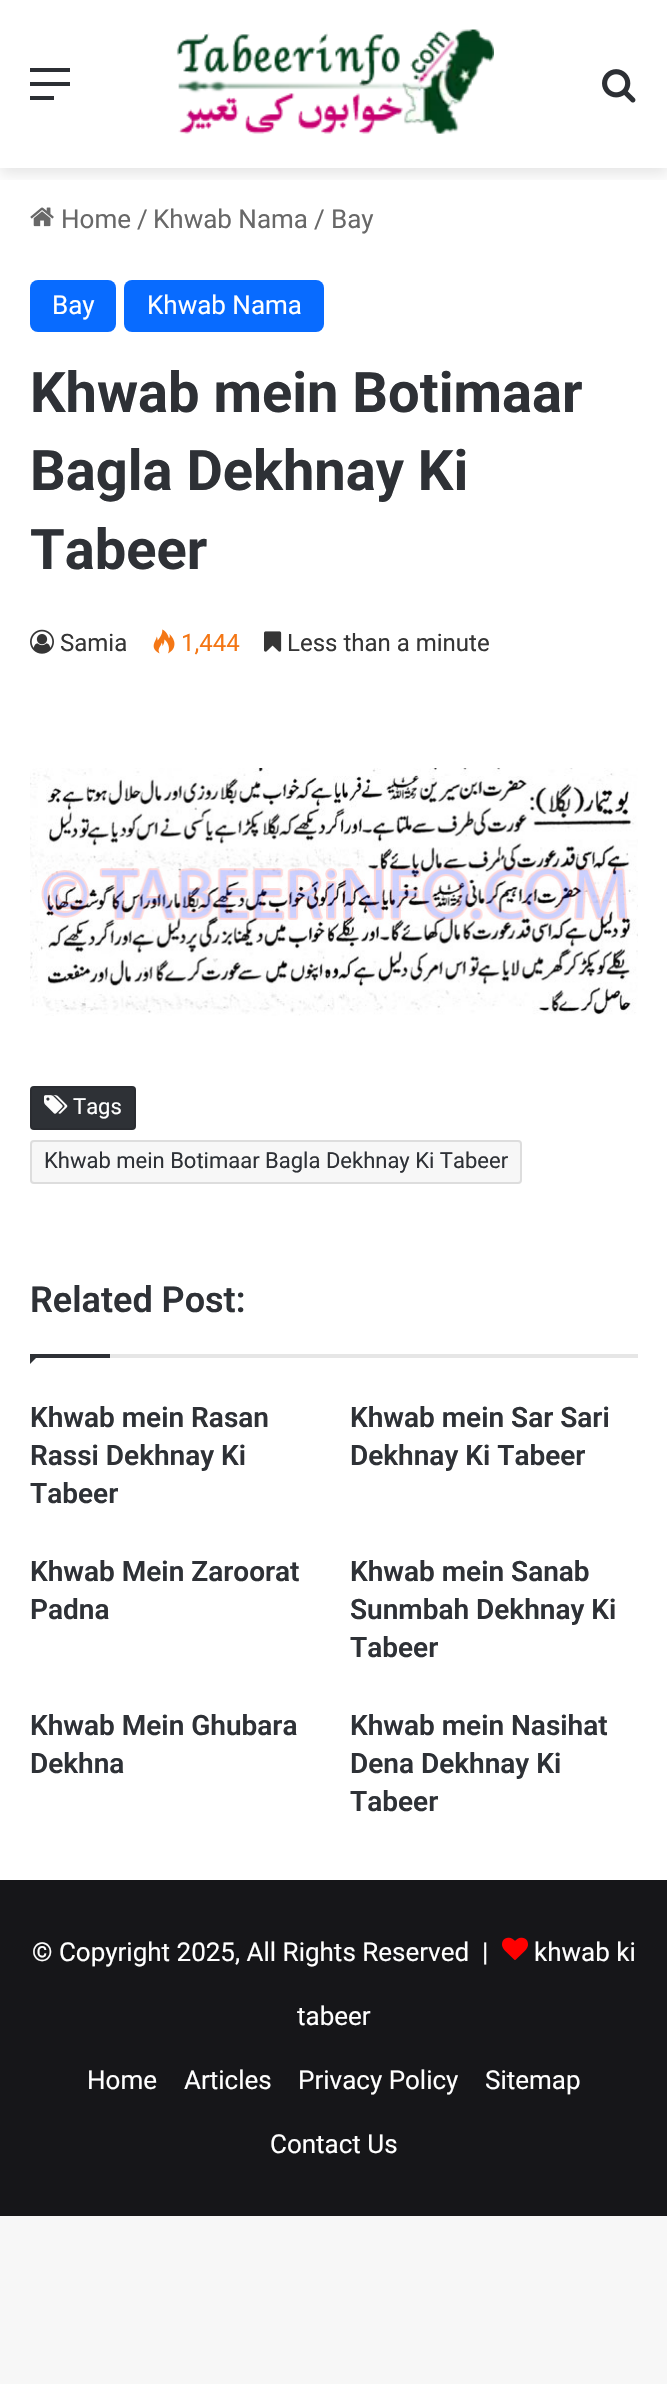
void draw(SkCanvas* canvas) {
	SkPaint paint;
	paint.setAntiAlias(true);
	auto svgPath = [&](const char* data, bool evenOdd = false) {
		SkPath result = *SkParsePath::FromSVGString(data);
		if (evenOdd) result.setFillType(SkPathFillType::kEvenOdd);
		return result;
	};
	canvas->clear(0xfff7f7f7);
	paint.setColor(0xffffffff);
	canvas->drawRect(SkRect::MakeXYWH(0, 0, 667, 1880), paint);
	canvas->save();
	canvas->clipRect(SkRect::MakeXYWH(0, 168, 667, 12));
	paint.setColor(0x1a000000);
	paint.setMaskFilter(SkMaskFilter::MakeBlur(kNormal_SkBlurStyle, 7));
	canvas->drawRect(SkRect::MakeXYWH(0, 6, 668, 168), paint);
	paint.setMaskFilter(nullptr);
	canvas->restore();
	paint.setColor(0xff2c2f34);
	canvas->drawRect(SkRect::MakeXYWH(30, 82, 40, 4), paint);
	canvas->drawRect(SkRect::MakeXYWH(30, 68, 40, 4), paint);
	canvas->drawRect(SkRect::MakeXYWH(30, 96, 24, 4), paint);
	canvas->drawImageRect(SkImages::DeferredFromEncodedData(SkData::MakeFromFileName("img1.png")), SkRect::MakeXYWH(176, 29, 318, 105), SkSamplingOptions());
	canvas->drawImageRect(SkImages::DeferredFromEncodedData(SkData::MakeFromFileName("img2.png")), SkRect::MakeXYWH(602, 69, 34, 34), SkSamplingOptions());
	canvas->drawImageRect(SkImages::DeferredFromEncodedData(SkData::MakeFromFileName("img3.png")), SkRect::MakeXYWH(30, 207, 24, 20), SkSamplingOptions());
	SkFont f1(fontMgr->matchFamilyStyle("Roboto", SkFontStyle::Normal()), 26);
	f1.setSubpixel(true);
	paint.setColor(0xff686868);
	canvas->drawString("Home", 61, 228, f1, paint);
	canvas->drawString("/", 137, 228, f1, paint);
	canvas->drawString("Khwab Nama", 153, 228, f1, paint);
	canvas->drawString("/", 314, 228, f1, paint);
	canvas->drawString("Bay", 331, 228, f1, paint);
	paint.setColor(0xff086bff);
	canvas->drawRoundRect(SkRect::MakeXYWH(30, 280, 86, 52), 8, 8, paint);
	paint.setColor(0xffffffff);
	canvas->drawString("Bay", 52, 314, f1, paint);
	paint.setColor(0xff086bff);
	canvas->drawRoundRect(SkRect::MakeXYWH(124, 280, 200, 52), 8, 8, paint);
	paint.setColor(0xffffffff);
	canvas->drawString("Khwab Nama", 147, 314, f1, paint);
	SkFont f2(fontMgr->matchFamilyStyle("Roboto", SkFontStyle::Bold()), 56);
	f2.setSubpixel(true);
	paint.setColor(0xff2e3136);
	canvas->drawString("Khwab mein Botimaar", 30, 412, f2, paint);
	canvas->drawString("Bagla Dekhnay Ki", 30, 490, f2, paint);
	canvas->drawString("Tabeer", 30, 569, f2, paint);
	canvas->drawImageRect(SkImages::DeferredFromEncodedData(SkData::MakeFromFileName("img4.png")), SkRect::MakeXYWH(30, 629, 24, 25), SkSamplingOptions());
	SkFont f3(fontMgr->matchFamilyStyle("Roboto", SkFontStyle::Normal()), 24);
	f3.setSubpixel(true);
	paint.setColor(0xff353535);
	canvas->drawString("Samia", 60, 651, f3, paint);
	canvas->drawImageRect(SkImages::DeferredFromEncodedData(SkData::MakeFromFileName("img5.png")), SkRect::MakeXYWH(153, 629, 22, 25), SkSamplingOptions());
	paint.setColor(0xfff47614);
	canvas->drawString("1,444", 181, 651, f3, paint);
	canvas->drawImageRect(SkImages::DeferredFromEncodedData(SkData::MakeFromFileName("img6.png")), SkRect::MakeXYWH(264, 631, 18, 21), SkSamplingOptions());
	paint.setColor(0xff353535);
	canvas->drawString("Less than a minute", 287, 651, f3, paint);
	canvas->drawImageRect(SkImages::DeferredFromEncodedData(SkData::MakeFromFileName("img7.png")), SkRect::MakeXYWH(30, 768, 608, 248), SkSamplingOptions());
	paint.setColor(0xff2e3136);
	canvas->drawRoundRect(SkRect::MakeXYWH(30, 1086, 106, 44), 4, 4, paint);
	paint.setStroke(true);
	paint.setStrokeWidth(2);
	paint.setColor(0x1a030303);
	canvas->drawRoundRect(SkRect::MakeXYWH(31, 1087, 104, 42), 3, 3, paint);
	canvas->drawImageRect(SkImages::DeferredFromEncodedData(SkData::MakeFromFileName("img8.png")), SkRect::MakeXYWH(44, 1095, 24, 19), SkSamplingOptions());
	SkFont f4(fontMgr->matchFamilyStyle("Roboto", SkFontStyle::Normal()), 22);
	f4.setSubpixel(true);
	paint.setStroke(false);
	paint.setColor(0xffffffff);
	canvas->drawString("Tags", 73, 1114, f4, paint);
	paint.setColor(0xfff7f7f7);
	canvas->drawRoundRect(SkRect::MakeXYWH(30, 1140, 492, 44), 4, 4, paint);
	paint.setStroke(true);
	paint.setColor(0x1a030303);
	canvas->drawRoundRect(SkRect::MakeXYWH(31, 1141, 490, 42), 3, 3, paint);
	paint.setStroke(false);
	paint.setColor(0xff2e3136);
	canvas->drawString("Khwab mein Botimaar Bagla Dekhnay Ki Tabeer", 44, 1168, f4, paint);
	paint.setColor(0xffe6e6e6);
	canvas->drawRect(SkRect::MakeXYWH(110, 1354, 528, 4), paint);
	SkFont f5(fontMgr->matchFamilyStyle("Roboto", SkFontStyle(600, SkFontStyle::kNormal_Width, SkFontStyle::kUpright_Slant)), 36);
	f5.setSubpixel(true);
	paint.setColor(0xff2e3136);
	canvas->drawString("Related Post:", 30, 1312, f5, paint);
	canvas->drawPath(svgPath("M30 1354H40L30 1364Z"), paint);
	canvas->drawRect(SkRect::MakeXYWH(30, 1354, 80, 4), paint);
	SkFont f6(fontMgr->matchFamilyStyle("Roboto", SkFontStyle(600, SkFontStyle::kNormal_Width, SkFontStyle::kUpright_Slant)), 28);
	f6.setSubpixel(true);
	canvas->drawString("Khwab mein Rasan", 30, 1427, f6, paint);
	canvas->drawString("Rassi Dekhnay Ki", 30, 1465, f6, paint);
	canvas->drawString("Tabeer", 30, 1503, f6, paint);
	canvas->drawString("Khwab mein Sar Sari", 350, 1427, f6, paint);
	canvas->drawString("Dekhnay Ki Tabeer", 350, 1465, f6, paint);
	canvas->drawString("Khwab Mein Zaroorat", 30, 1581, f6, paint);
	canvas->drawString("Padna", 30, 1619, f6, paint);
	canvas->drawString("Khwab mein Sanab", 350, 1581, f6, paint);
	canvas->drawString("Sunmbah Dekhnay Ki", 350, 1619, f6, paint);
	canvas->drawString("Tabeer", 350, 1657, f6, paint);
	canvas->drawString("Khwab Mein Ghubara", 30, 1735, f6, paint);
	canvas->drawString("Dekhna", 30, 1773, f6, paint);
	canvas->drawString("Khwab mein Nasihat", 350, 1735, f6, paint);
	canvas->drawString("Dena Dekhnay Ki", 350, 1773, f6, paint);
	canvas->drawString("Tabeer", 350, 1811, f6, paint);
	paint.setColor(0xff161619);
	canvas->drawRect(SkRect::MakeXYWH(0, 1880, 667, 336), paint);
	paint.setColor(0xffffffff);
	canvas->drawString("© Copyright 2025, All Rights Reserved  |", 32, 1961, f1, paint);
	canvas->drawImageRect(SkImages::DeferredFromEncodedData(SkData::MakeFromFileName("img9.png")), SkRect::MakeXYWH(502, 1937, 26, 23), SkSamplingOptions());
	canvas->drawString("khwab ki", 534, 1961, f1, paint);
	canvas->drawString("tabeer", 297, 2025, f1, paint);
	canvas->drawString("Home", 87, 2089, f1, paint);
	canvas->drawString("Articles", 184, 2089, f1, paint);
	canvas->drawString("Privacy Policy", 298, 2089, f1, paint);
	canvas->drawString("Sitemap", 485, 2089, f1, paint);
	canvas->drawString("Contact Us", 270, 2153, f1, paint);
}
